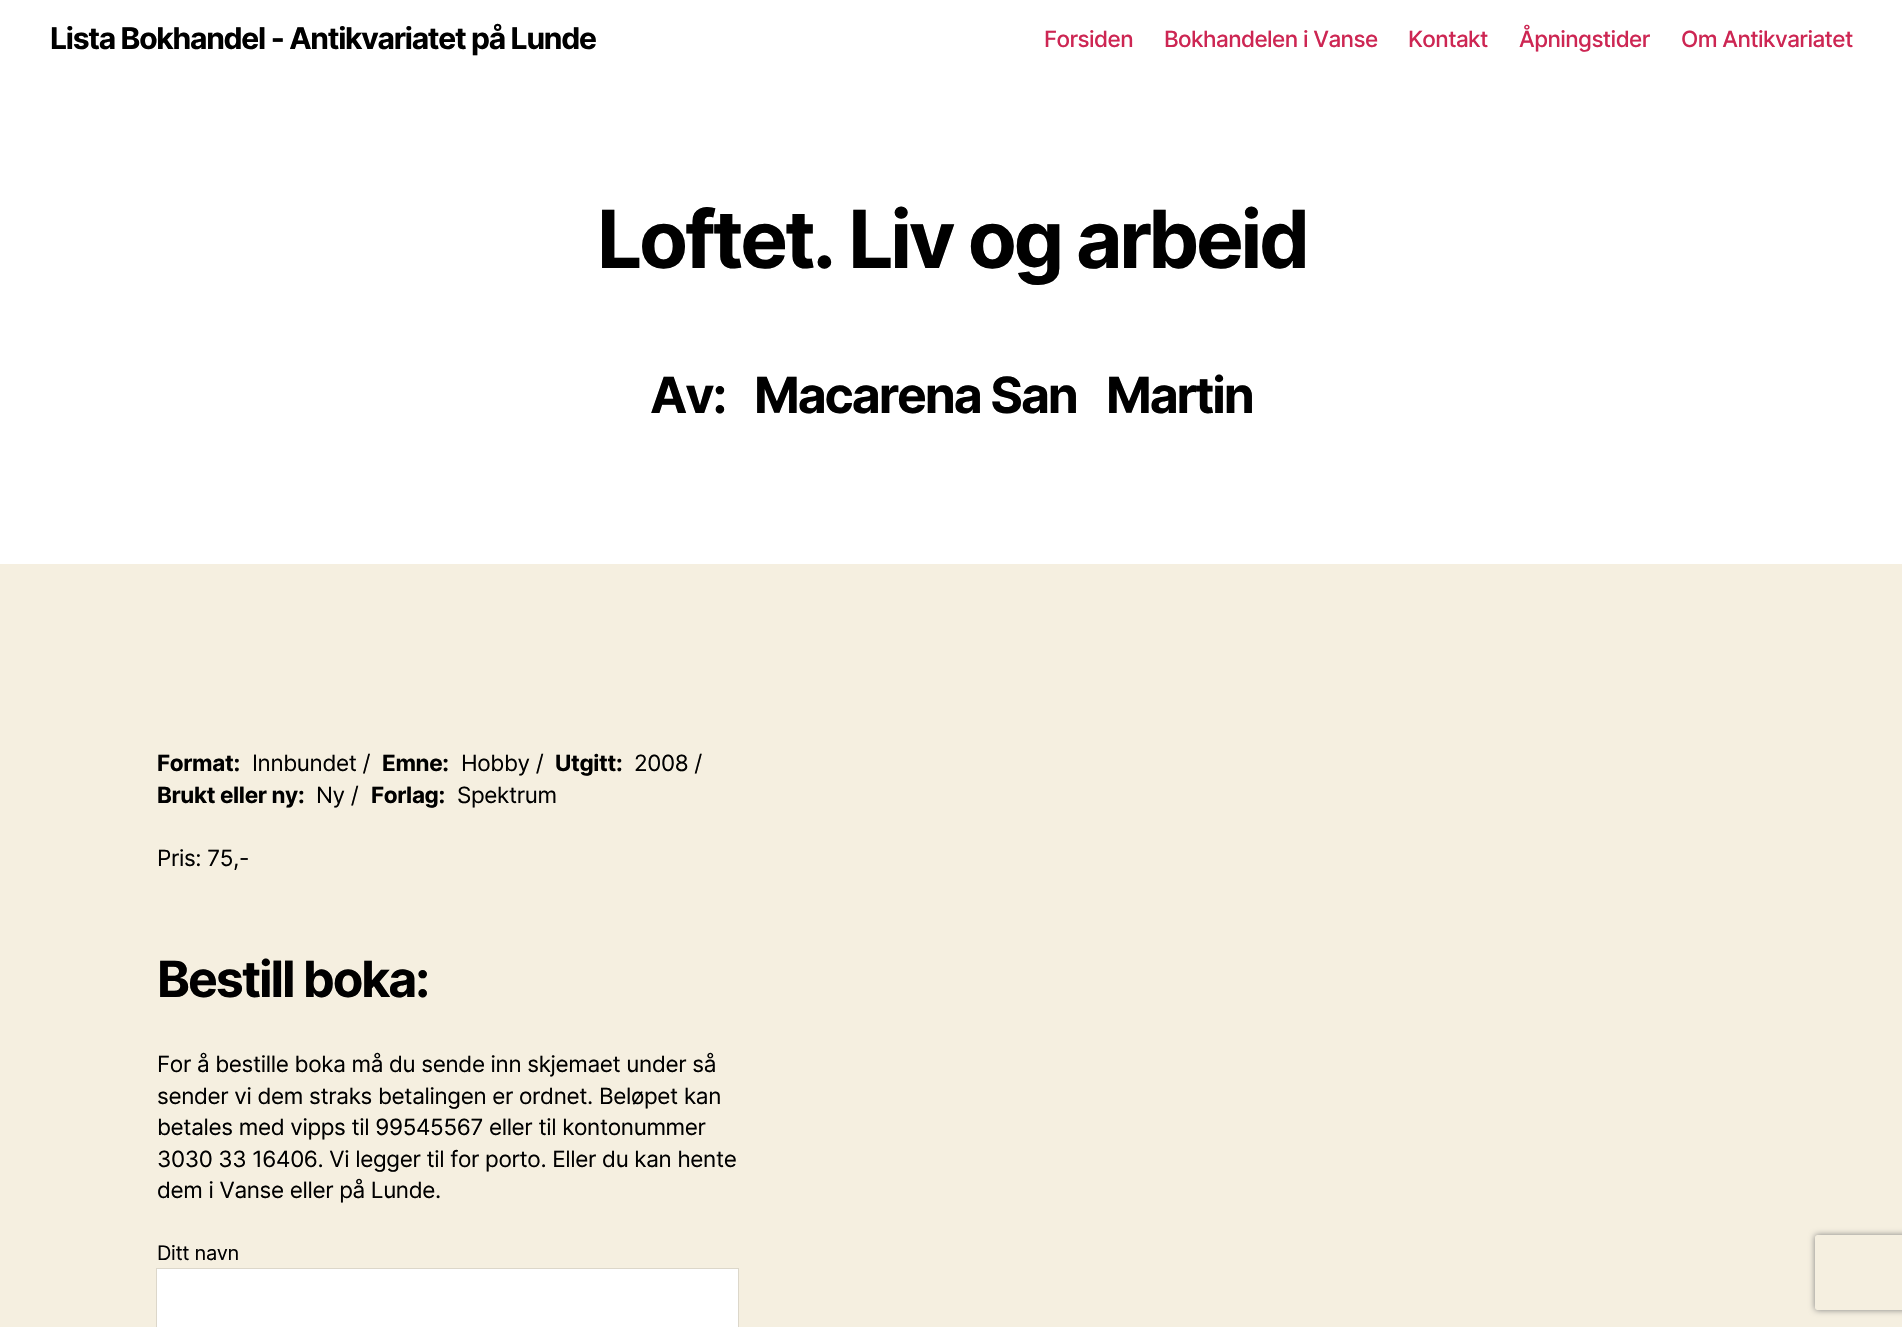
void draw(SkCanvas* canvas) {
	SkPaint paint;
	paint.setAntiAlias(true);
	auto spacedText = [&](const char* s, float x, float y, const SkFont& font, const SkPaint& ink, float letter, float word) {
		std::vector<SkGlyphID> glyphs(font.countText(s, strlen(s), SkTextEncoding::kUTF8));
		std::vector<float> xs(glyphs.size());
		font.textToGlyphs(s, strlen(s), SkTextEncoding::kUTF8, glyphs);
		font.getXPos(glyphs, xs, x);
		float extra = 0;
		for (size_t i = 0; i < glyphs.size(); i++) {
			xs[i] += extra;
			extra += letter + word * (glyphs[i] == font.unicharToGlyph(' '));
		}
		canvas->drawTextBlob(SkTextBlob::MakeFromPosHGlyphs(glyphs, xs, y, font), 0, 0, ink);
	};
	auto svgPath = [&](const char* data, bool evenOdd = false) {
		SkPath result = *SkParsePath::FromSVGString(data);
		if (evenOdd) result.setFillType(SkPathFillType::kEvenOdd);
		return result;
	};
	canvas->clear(0xfff5efe0);
	paint.setColor(0xffffffff);
	canvas->drawRect(SkRect::MakeXYWH(0, 0, 1902, 564), paint);
	SkFont f1(fontMgr->matchFamilyStyle("Inter", SkFontStyle::Bold()), 30);
	f1.setSubpixel(true);
	paint.setColor(0xff000000);
	spacedText("Lista Bokhandel - Antikvariatet på Lunde", 50, 49, f1, paint, -1.25, 0);
	SkFont f2(fontMgr->matchFamilyStyle("Inter", SkFontStyle(500, SkFontStyle::kNormal_Width, SkFontStyle::kUpright_Slant)), 22.5);
	f2.setSubpixel(true);
	paint.setColor(0xffcd2653);
	spacedText("Forsiden", 1044, 47, f2, paint, -0.6, 0);
	spacedText("Bokhandelen i Vanse", 1164, 47, f2, paint, -0.6, 0);
	spacedText("Kontakt", 1408, 47, f2, paint, -0.6, 0);
	spacedText("Åpningstider", 1519, 47, f2, paint, -0.6, 0);
	spacedText("Om Antikvariatet", 1681, 47, f2, paint, -0.6, 0);
	SkFont f3(fontMgr->matchFamilyStyle("Inter", SkFontStyle::Bold()), 80);
	f3.setSubpixel(true);
	paint.setColor(0xff000000);
	spacedText("Loftet. Liv og arbeid", 597, 268, f3, paint, -3.3, 0);
	SkFont f4(fontMgr->matchFamilyStyle("Inter", SkFontStyle::Bold()), 50);
	f4.setSubpixel(true);
	spacedText("Av:", 650, 413, f4, paint, -2.1, 0);
	spacedText("Macarena San", 754, 413, f4, paint, -2.1, 0);
	spacedText("Martin", 1106, 413, f4, paint, -2.1, 0);
	SkFont f5(fontMgr->matchFamilyStyle("Inter", SkFontStyle::Bold()), 22.5);
	f5.setSubpixel(true);
	spacedText("Format:", 157, 771, f5, paint, -0.35, 0);
	SkFont f6(fontMgr->matchFamilyStyle("Inter", SkFontStyle::Normal()), 22.5);
	f6.setSubpixel(true);
	spacedText("Innbundet /", 252, 771, f6, paint, -0.35, 0);
	spacedText("Emne:", 382, 771, f5, paint, -0.35, 0);
	spacedText("Hobby /", 461, 771, f6, paint, -0.35, 0);
	spacedText("Utgitt:", 555, 771, f5, paint, -0.35, 0);
	spacedText("2008 /", 634, 771, f6, paint, -0.35, 0);
	spacedText("Brukt eller ny:", 157, 803, f5, paint, -0.35, 0);
	spacedText("Ny /", 316, 803, f6, paint, -0.35, 0);
	spacedText("Forlag:", 371, 803, f5, paint, -0.35, 0);
	spacedText("Spektrum", 457, 803, f6, paint, -0.35, 0);
	spacedText("Pris: 75,-", 157, 866, f6, paint, -0.35, 0);
	spacedText("Bestill boka:", 157, 997, f4, paint, -2.1, 0);
	spacedText("For å bestille boka må du sende inn skjemaet under så", 157, 1072, f6, paint, -0.35, 0);
	spacedText("sender vi dem straks betalingen er ordnet. Beløpet kan", 157, 1104, f6, paint, -0.35, 0);
	spacedText("betales med vipps til 99545567 eller til kontonummer", 157, 1135, f6, paint, -0.35, 0);
	spacedText("3030 33 16406. Vi legger til for porto. Eller du kan hente", 157, 1167, f6, paint, -0.35, 0);
	spacedText("dem i Vanse eller på Lunde.", 157, 1198, f6, paint, -0.35, 0);
	SkFont f7(fontMgr->matchFamilyStyle("Inter", SkFontStyle::Normal()), 20);
	f7.setSubpixel(true);
	spacedText("Ditt navn", 157, 1260, f7, paint, -0.35, 0);
	paint.setColor(0xffffffff);
	canvas->drawRect(SkRect::MakeXYWH(156.5, 1268.5, 582, 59), paint);
	paint.setStroke(true);
	paint.setStrokeWidth(1);
	paint.setColor(0xffdcd7ca);
	canvas->drawRect(SkRect::MakeXYWH(156.5, 1268.5, 582, 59), paint);
	canvas->save();
	canvas->clipPath(svgPath("M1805 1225H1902V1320H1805ZM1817.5 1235H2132.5C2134 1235 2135 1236 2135 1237.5V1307.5C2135 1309 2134 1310 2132.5 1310H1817.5C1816 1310 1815 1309 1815 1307.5V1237.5C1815 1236 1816 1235 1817.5 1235Z", true), true);
	paint.setStroke(false);
	paint.setColor(0xff808080);
	paint.setMaskFilter(SkMaskFilter::MakeBlur(kNormal_SkBlurStyle, 3));
	canvas->drawRoundRect(SkRect::MakeXYWH(1815, 1235, 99, 75), 2.5, 2.5, paint);
	paint.setMaskFilter(nullptr);
	canvas->restore();
}
